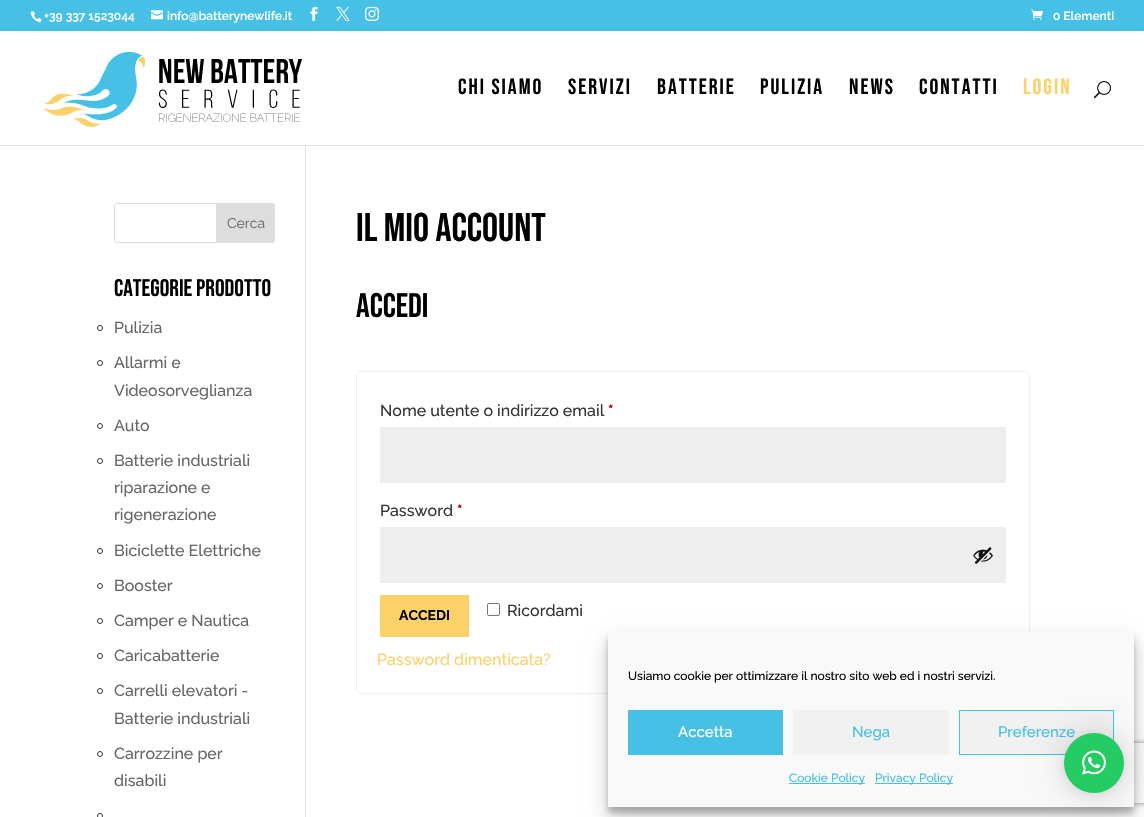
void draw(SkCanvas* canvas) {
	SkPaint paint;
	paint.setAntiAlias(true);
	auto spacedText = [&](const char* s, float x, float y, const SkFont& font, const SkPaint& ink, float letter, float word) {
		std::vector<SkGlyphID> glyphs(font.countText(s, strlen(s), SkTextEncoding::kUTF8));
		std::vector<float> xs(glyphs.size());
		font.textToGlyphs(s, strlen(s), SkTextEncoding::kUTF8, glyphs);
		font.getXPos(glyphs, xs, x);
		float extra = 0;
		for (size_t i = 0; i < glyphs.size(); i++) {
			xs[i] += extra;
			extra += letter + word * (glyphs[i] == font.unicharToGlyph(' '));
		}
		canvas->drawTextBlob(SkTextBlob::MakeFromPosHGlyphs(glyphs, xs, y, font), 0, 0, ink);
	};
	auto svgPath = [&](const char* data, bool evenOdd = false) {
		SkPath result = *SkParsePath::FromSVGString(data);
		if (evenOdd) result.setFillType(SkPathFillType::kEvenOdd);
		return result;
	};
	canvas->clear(0xffffffff);
	paint.setColor(0xffe6e6e6);
	canvas->drawRect(SkRect::MakeXYWH(0, 145, 1144, 1), paint);
	paint.setColor(0xff46c0e4);
	canvas->drawRect(SkRect::MakeXYWH(0, 0, 1144, 31), paint);
	canvas->drawImageRect(SkImages::DeferredFromEncodedData(SkData::MakeFromFileName("img1.png")), SkRect::MakeXYWH(30, 11, 12, 12), SkSamplingOptions());
	SkFont f1(fontMgr->matchFamilyStyle("Raleway", SkFontStyle(600, SkFontStyle::kNormal_Width, SkFontStyle::kUpright_Slant)), 12);
	f1.setSubpixel(true);
	paint.setColor(0xffffffff);
	canvas->drawString("+39 337 1523044", 44, 20, f1, paint);
	canvas->drawImageRect(SkImages::DeferredFromEncodedData(SkData::MakeFromFileName("img2.png")), SkRect::MakeXYWH(151, 10, 12, 10), SkSamplingOptions());
	canvas->drawString("info@batterynewlife.it", 167, 20, f1, paint);
	canvas->drawImageRect(SkImages::DeferredFromEncodedData(SkData::MakeFromFileName("img3.png")), SkRect::MakeXYWH(310, 6, 8, 15), SkSamplingOptions());
	canvas->drawImageRect(SkImages::DeferredFromEncodedData(SkData::MakeFromFileName("img4.png")), SkRect::MakeXYWH(336, 6, 14, 15), SkSamplingOptions());
	canvas->drawImageRect(SkImages::DeferredFromEncodedData(SkData::MakeFromFileName("img5.png")), SkRect::MakeXYWH(365, 6, 14, 15), SkSamplingOptions());
	canvas->drawImageRect(SkImages::DeferredFromEncodedData(SkData::MakeFromFileName("img6.png")), SkRect::MakeXYWH(1031, 9, 12, 11), SkSamplingOptions());
	canvas->drawString("0 Elementi", 1053, 20, f1, paint);
	canvas->drawImageRect(SkImages::DeferredFromEncodedData(SkData::MakeFromFileName("img7.png")), SkRect::MakeXYWH(43, 52, 259, 75), SkSamplingOptions());
	SkFont f2(fontMgr->matchFamilyStyle("Bebas Neue", SkFontStyle::Normal()), 22);
	f2.setSubpixel(true);
	paint.setColor(0xff000000);
	spacedText("CHI SIAMO", 458, 94, f2, paint, 2, 0);
	spacedText("SERVIZI", 568, 94, f2, paint, 2, 0);
	spacedText("BATTERIE", 657, 94, f2, paint, 2, 0);
	spacedText("PULIZIA", 760, 94, f2, paint, 2, 0);
	spacedText("NEWS", 849, 94, f2, paint, 2, 0);
	spacedText("CONTATTI", 919, 94, f2, paint, 2, 0);
	paint.setColor(0xfffbd169);
	spacedText("LOGIN", 1023, 94, f2, paint, 2, 0);
	canvas->drawImageRect(SkImages::DeferredFromEncodedData(SkData::MakeFromFileName("img8.png")), SkRect::MakeXYWH(1094, 81, 17, 18), SkSamplingOptions());
	paint.setColor(0xffe2e2e2);
	canvas->drawRect(SkRect::MakeXYWH(305, 145, 1, 672), paint);
	paint.setColor(0xffcbcbcb);
	canvas->drawRect(SkRect::MakeXYWH(305, 145, 1, 1), paint);
	paint.setStroke(true);
	paint.setStrokeWidth(1);
	paint.setColor(0xffdddddd);
	canvas->drawRoundRect(SkRect::MakeXYWH(114.5, 203.5, 160, 39), 2.5, 2.5, paint);
	paint.setStroke(false);
	canvas->drawPath(svgPath("M216.5 203.5H272C273.5 203.5 274.5 204.5 274.5 206V240C274.5 241.5 273.5 242.5 272 242.5H216.5Z"), paint);
	paint.setStroke(true);
	canvas->drawPath(svgPath("M216.5 203.5H272C273.5 203.5 274.5 204.5 274.5 206V240C274.5 241.5 273.5 242.5 272 242.5H216.5Z"), paint);
	SkFont f3(fontMgr->matchFamilyStyle("Raleway", SkFontStyle::Normal()), 14);
	f3.setSubpixel(true);
	paint.setStroke(false);
	paint.setColor(0xff666666);
	canvas->drawString("Cerca", 227, 228, f3, paint);
	SkFont f4(fontMgr->matchFamilyStyle("Bebas Neue", SkFontStyle::Normal()), 24);
	f4.setSubpixel(true);
	paint.setColor(0xff000000);
	canvas->drawString("CATEGORIE PRODOTTO", 114, 296, f4, paint);
	paint.setStroke(true);
	paint.setColor(0xff353535);
	canvas->drawCircle(100, 328, 2.5, paint);
	SkFont f5(fontMgr->matchFamilyStyle("Raleway", SkFontStyle(500, SkFontStyle::kNormal_Width, SkFontStyle::kUpright_Slant)), 16);
	f5.setSubpixel(true);
	paint.setStroke(false);
	paint.setColor(0xff666666);
	canvas->drawString("Pulizia", 114, 333, f5, paint);
	paint.setStroke(true);
	paint.setColor(0xff353535);
	canvas->drawCircle(100, 363, 2.5, paint);
	paint.setStroke(false);
	paint.setColor(0xff666666);
	canvas->drawString("Allarmi e", 114, 368, f5, paint);
	canvas->drawString("Videosorveglianza", 114, 396, f5, paint);
	paint.setStroke(true);
	paint.setColor(0xff353535);
	canvas->drawCircle(100, 426, 2.5, paint);
	paint.setStroke(false);
	paint.setColor(0xff666666);
	canvas->drawString("Auto", 114, 431, f5, paint);
	paint.setStroke(true);
	paint.setColor(0xff353535);
	canvas->drawCircle(100, 461, 2.5, paint);
	paint.setStroke(false);
	paint.setColor(0xff666666);
	canvas->drawString("Batterie industriali", 114, 466, f5, paint);
	canvas->drawString("riparazione e", 114, 493, f5, paint);
	canvas->drawString("rigenerazione", 114, 520, f5, paint);
	paint.setStroke(true);
	paint.setColor(0xff353535);
	canvas->drawCircle(100, 551, 2.5, paint);
	paint.setStroke(false);
	paint.setColor(0xff666666);
	canvas->drawString("Biciclette Elettriche", 114, 556, f5, paint);
	paint.setStroke(true);
	paint.setColor(0xff353535);
	canvas->drawCircle(100, 586, 2.5, paint);
	paint.setStroke(false);
	paint.setColor(0xff666666);
	canvas->drawString("Booster", 114, 591, f5, paint);
	paint.setStroke(true);
	paint.setColor(0xff353535);
	canvas->drawCircle(100, 621, 2.5, paint);
	paint.setStroke(false);
	paint.setColor(0xff666666);
	canvas->drawString("Camper e Nautica", 114, 626, f5, paint);
	paint.setStroke(true);
	paint.setColor(0xff353535);
	canvas->drawCircle(100, 656, 2.5, paint);
	paint.setStroke(false);
	paint.setColor(0xff666666);
	canvas->drawString("Caricabatterie", 114, 661, f5, paint);
	paint.setStroke(true);
	paint.setColor(0xff353535);
	canvas->drawCircle(100, 691, 2.5, paint);
	paint.setStroke(false);
	paint.setColor(0xff666666);
	canvas->drawString("Carrelli elevatori -", 114, 696, f5, paint);
	canvas->drawString("Batterie industriali", 114, 724, f5, paint);
	paint.setStroke(true);
	paint.setColor(0xff353535);
	canvas->drawCircle(100, 754, 2.5, paint);
	paint.setStroke(false);
	paint.setColor(0xff666666);
	canvas->drawString("Carrozzine per", 114, 759, f5, paint);
	canvas->drawString("disabili", 114, 786, f5, paint);
	paint.setStroke(true);
	paint.setColor(0xff353535);
	canvas->drawCircle(100, 816, 2.5, paint);
	SkFont f6(fontMgr->matchFamilyStyle("Bebas Neue", SkFontStyle::Normal()), 40);
	f6.setSubpixel(true);
	paint.setStroke(false);
	paint.setColor(0xff000000);
	canvas->drawString("IL MIO ACCOUNT", 356, 241, f6, paint);
	SkFont f7(fontMgr->matchFamilyStyle("Bebas Neue", SkFontStyle::Normal()), 34);
	f7.setSubpixel(true);
	canvas->drawString("ACCEDI", 356, 317, f7, paint);
	paint.setStroke(true);
	paint.setColor(0xffeeeeee);
	canvas->drawRoundRect(SkRect::MakeXYWH(356.5, 371.5, 673, 322), 4.5, 4.5, paint);
	paint.setStroke(false);
	paint.setColor(0xff353535);
	canvas->drawString("Nome utente o indirizzo email", 380, 416, f5, paint);
	SkFont f8(fontMgr->matchFamilyStyle("Raleway", SkFontStyle::Bold()), 16);
	f8.setSubpixel(true);
	paint.setColor(0xffaa0000);
	canvas->drawString("*", 608, 416, f8, paint);
	paint.setColor(0xffeeeeee);
	canvas->drawRect(SkRect::MakeXYWH(380, 427, 626, 56), paint);
	paint.setColor(0xff353535);
	canvas->drawString("Password", 380, 516, f5, paint);
	paint.setColor(0xffaa0000);
	canvas->drawString("*", 457, 516, f8, paint);
	paint.setColor(0xffeeeeee);
	canvas->drawRect(SkRect::MakeXYWH(380, 527, 626, 56), paint);
	canvas->drawImageRect(SkImages::DeferredFromEncodedData(SkData::MakeFromFileName("img9.png")), SkRect::MakeXYWH(973, 547, 20, 17), SkSamplingOptions());
	paint.setColor(0xfffbd169);
	canvas->drawRect(SkRect::MakeXYWH(380, 595, 89, 42), paint);
	SkFont f9(fontMgr->matchFamilyStyle("Raleway", SkFontStyle::Bold()), 14);
	f9.setSubpixel(true);
	paint.setColor(0xff000000);
	canvas->drawString("ACCEDI", 399, 620, f9, paint);
	paint.setStroke(true);
	paint.setColor(0xff767676);
	canvas->drawRoundRect(SkRect::MakeXYWH(487.5, 603.5, 12, 12), 1.5, 1.5, paint);
	paint.setStroke(false);
	paint.setColor(0xff353535);
	canvas->drawString("Ricordami", 507, 616, f5, paint);
	paint.setColor(0xfffbd169);
	canvas->drawString("Password dimenticata?", 377, 665, f5, paint);
	paint.setColor(0x3b000000);
	paint.setMaskFilter(SkMaskFilter::MakeBlur(kNormal_SkBlurStyle, 3));
	canvas->drawRect(SkRect::MakeXYWH(608, 638, 526, 175), paint);
	paint.setMaskFilter(nullptr);
	paint.setColor(0x30000000);
	paint.setMaskFilter(SkMaskFilter::MakeBlur(kNormal_SkBlurStyle, 10));
	canvas->drawRect(SkRect::MakeXYWH(608, 642, 526, 175), paint);
	paint.setMaskFilter(nullptr);
	canvas->save();
	canvas->clipPath(svgPath("M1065 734H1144V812H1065ZM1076 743H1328C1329 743 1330 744 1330 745V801C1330 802 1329 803 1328 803H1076C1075 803 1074 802 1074 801V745C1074 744 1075 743 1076 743Z", true), true);
	paint.setColor(0xff808080);
	paint.setMaskFilter(SkMaskFilter::MakeBlur(kNormal_SkBlurStyle, 2.5));
	canvas->drawRoundRect(SkRect::MakeXYWH(1074, 743, 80, 60), 2, 2, paint);
	paint.setMaskFilter(nullptr);
	canvas->restore();
	paint.setColor(0xfff9f9f9);
	canvas->drawRect(SkRect::MakeXYWH(608, 632, 526, 175), paint);
	SkFont f10(fontMgr->matchFamilyStyle("Raleway", SkFontStyle(500, SkFontStyle::kNormal_Width, SkFontStyle::kUpright_Slant)), 12);
	f10.setSubpixel(true);
	paint.setColor(0xff000000);
	canvas->drawString("Usiamo cookie per ottimizzare il nostro sito web ed i nostri servizi.", 628, 680, f10, paint);
	paint.setColor(0xff46c0e4);
	canvas->drawRect(SkRect::MakeXYWH(628, 710, 155, 45), paint);
	SkFont f11(fontMgr->matchFamilyStyle("Raleway", SkFontStyle(500, SkFontStyle::kNormal_Width, SkFontStyle::kUpright_Slant)), 15);
	f11.setSubpixel(true);
	paint.setColor(0xffffffff);
	canvas->drawString("Accetta", 678, 737, f11, paint);
	paint.setColor(0xfff1f1f1);
	canvas->drawRect(SkRect::MakeXYWH(793, 710, 156, 45), paint);
	paint.setColor(0xff46c0e4);
	canvas->drawString("Nega", 852, 737, f11, paint);
	paint.setColor(0xfff1f1f1);
	canvas->drawRect(SkRect::MakeXYWH(959.5, 710.5, 154, 44), paint);
	paint.setStroke(true);
	paint.setColor(0xff46c0e4);
	canvas->drawRect(SkRect::MakeXYWH(959.5, 710.5, 154, 44), paint);
	paint.setStroke(false);
	canvas->drawString("Preferenze", 998, 737, f11, paint);
	canvas->drawRect(SkRect::MakeXYWH(789, 783, 76, 1), paint);
	canvas->drawString("Cookie Policy", 789, 782, f10, paint);
	canvas->drawRect(SkRect::MakeXYWH(875, 783, 78, 1), paint);
	canvas->drawString("Privacy Policy", 875, 782, f10, paint);
	paint.setColor(0x29000000);
	paint.setMaskFilter(SkMaskFilter::MakeBlur(kNormal_SkBlurStyle, 16));
	canvas->drawRoundRect(SkRect::MakeXYWH(1064, 735, 60, 60), 30, 30, paint);
	paint.setMaskFilter(nullptr);
	paint.setColor(0x0f000000);
	paint.setMaskFilter(SkMaskFilter::MakeBlur(kNormal_SkBlurStyle, 3));
	canvas->drawRoundRect(SkRect::MakeXYWH(1064, 734, 60, 60), 30, 30, paint);
	paint.setMaskFilter(nullptr);
	paint.setColor(0xff24cc63);
	canvas->drawCircle(1094, 763, 30, paint);
	canvas->drawImageRect(SkImages::DeferredFromEncodedData(SkData::MakeFromFileName("img10.png")), SkRect::MakeXYWH(1082, 750, 24, 25), SkSamplingOptions());
}
